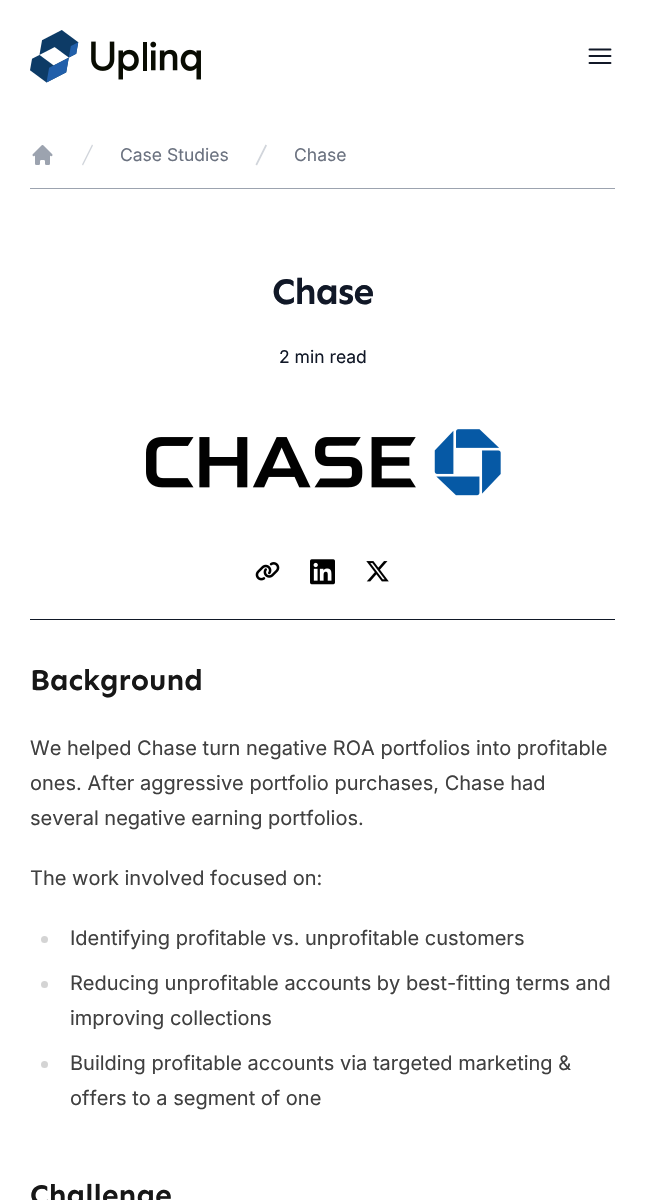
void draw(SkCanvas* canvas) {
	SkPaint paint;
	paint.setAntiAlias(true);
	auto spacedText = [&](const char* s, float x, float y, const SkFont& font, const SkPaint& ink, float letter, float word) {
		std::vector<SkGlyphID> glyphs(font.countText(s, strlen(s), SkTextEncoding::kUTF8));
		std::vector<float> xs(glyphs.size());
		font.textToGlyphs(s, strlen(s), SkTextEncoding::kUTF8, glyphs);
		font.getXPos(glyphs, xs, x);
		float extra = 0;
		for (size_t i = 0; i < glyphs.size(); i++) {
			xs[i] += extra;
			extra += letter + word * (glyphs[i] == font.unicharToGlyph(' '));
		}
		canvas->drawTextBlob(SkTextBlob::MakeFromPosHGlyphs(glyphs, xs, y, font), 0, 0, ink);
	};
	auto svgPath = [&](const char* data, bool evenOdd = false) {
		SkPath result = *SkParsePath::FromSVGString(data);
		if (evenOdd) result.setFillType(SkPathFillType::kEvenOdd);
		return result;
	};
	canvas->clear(0xffffffff);
	canvas->drawImageRect(SkImages::DeferredFromEncodedData(SkData::MakeFromFileName("img1.png")), SkRect::MakeXYWH(30, 30, 171, 53), SkSamplingOptions());
	paint.setStroke(true);
	paint.setStrokeWidth(1.9);
	paint.setStrokeCap(SkPaint::kRound_Cap);
	paint.setStrokeJoin(SkPaint::kRound_Join);
	paint.setColor(0xff111827);
	canvas->drawPath(svgPath("M589.5 49.5H610.5M589.5 56H610.5M589.5 63H610.5"), paint);
	paint.setStroke(false);
	paint.setColor(0xff9ca3af);
	canvas->drawRect(SkRect::MakeXYWH(30, 188, 585, 1), paint);
	canvas->drawImageRect(SkImages::DeferredFromEncodedData(SkData::MakeFromFileName("img2.png")), SkRect::MakeXYWH(32, 145, 21, 20), SkSamplingOptions());
	paint.setColor(0xffd1d5db);
	canvas->drawPath(svgPath("M82 164.5L92 144.5L93 145.5L83 165.5Z"), paint);
	SkFont f1(fontMgr->matchFamilyStyle("Inter", SkFontStyle::Normal()), 17.5);
	f1.setSubpixel(true);
	paint.setColor(0xff6b7280);
	canvas->drawString("Case Studies", 120, 161, f1, paint);
	paint.setColor(0xffd1d5db);
	canvas->drawPath(svgPath("M255.5 164.5L265.5 144.5L267 145.5L257 165.5Z"), paint);
	paint.setColor(0xff6b7280);
	canvas->drawString("Chase", 294, 161, f1, paint);
	SkFont f2(fontMgr->matchFamilyStyle("Sen", SkFontStyle::Bold()), 37.5);
	f2.setSubpixel(true);
	paint.setColor(0xff111827);
	spacedText("Chase", 272, 304, f2, paint, -1, 0);
	canvas->drawString("2 min read", 279, 363, f1, paint);
	canvas->drawImageRect(SkImages::DeferredFromEncodedData(SkData::MakeFromFileName("img3.png")), SkRect::MakeXYWH(146, 429, 355, 67), SkSamplingOptions());
	canvas->drawImageRect(SkImages::DeferredFromEncodedData(SkData::MakeFromFileName("img4.png")), SkRect::MakeXYWH(255, 562, 25, 19), SkSamplingOptions());
	canvas->drawImageRect(SkImages::DeferredFromEncodedData(SkData::MakeFromFileName("img5.png")), SkRect::MakeXYWH(310, 559, 25, 26), SkSamplingOptions());
	canvas->drawImageRect(SkImages::DeferredFromEncodedData(SkData::MakeFromFileName("img6.png")), SkRect::MakeXYWH(366, 561, 23, 21), SkSamplingOptions());
	canvas->drawRect(SkRect::MakeXYWH(30, 619, 585, 1), paint);
	SkFont f3(fontMgr->matchFamilyStyle("Sen", SkFontStyle::Bold()), 30);
	f3.setSubpixel(true);
	paint.setColor(0xff171717);
	canvas->drawString("Background", 30, 690, f3, paint);
	SkFont f4(fontMgr->matchFamilyStyle("Inter", SkFontStyle::Normal()), 20);
	f4.setSubpixel(true);
	paint.setColor(0xff404040);
	canvas->drawString("We helped Chase turn negative ROA portfolios into profitable", 30, 755, f4, paint);
	canvas->drawString("ones. After aggressive portfolio purchases, Chase had", 30, 790, f4, paint);
	canvas->drawString("several negative earning portfolios.", 30, 825, f4, paint);
	canvas->drawString("The work involved focused on:", 30, 885, f4, paint);
	paint.setColor(0xffd4d4d4);
	canvas->drawCircle(44.5, 939.5, 3.5, paint);
	paint.setColor(0xff404040);
	canvas->drawString("Identifying profitable vs. unprofitable customers", 70, 945, f4, paint);
	paint.setColor(0xffd4d4d4);
	canvas->drawCircle(44.5, 984.5, 3.5, paint);
	paint.setColor(0xff404040);
	canvas->drawString("Reducing unprofitable accounts by best-fitting terms and", 70, 990, f4, paint);
	canvas->drawString("improving collections", 70, 1025, f4, paint);
	paint.setColor(0xffd4d4d4);
	canvas->drawCircle(44.5, 1064.5, 3.5, paint);
	paint.setColor(0xff404040);
	canvas->drawString("Building profitable accounts via targeted marketing &", 70, 1070, f4, paint);
	canvas->drawString("offers to a segment of one", 70, 1105, f4, paint);
	paint.setColor(0xff171717);
	canvas->drawString("Challenge", 30, 1205, f3, paint);
}
